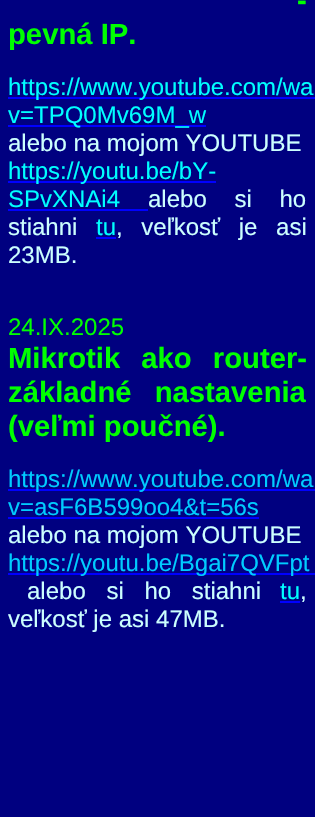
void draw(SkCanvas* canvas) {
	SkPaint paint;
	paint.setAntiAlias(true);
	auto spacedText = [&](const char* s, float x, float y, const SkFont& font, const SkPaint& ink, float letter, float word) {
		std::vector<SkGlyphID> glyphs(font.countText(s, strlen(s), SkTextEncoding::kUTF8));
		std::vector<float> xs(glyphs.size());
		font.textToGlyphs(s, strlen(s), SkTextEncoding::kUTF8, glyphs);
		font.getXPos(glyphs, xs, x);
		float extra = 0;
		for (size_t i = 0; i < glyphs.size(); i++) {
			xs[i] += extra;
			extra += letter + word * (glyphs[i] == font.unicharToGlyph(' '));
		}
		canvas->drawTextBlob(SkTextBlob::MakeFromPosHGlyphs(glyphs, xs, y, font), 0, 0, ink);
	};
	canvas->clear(0xff000080);
	SkFont f1(fontMgr->matchFamilyStyle("Liberation Sans", SkFontStyle::Bold()), 29.25);
	f1.setSubpixel(true);
	paint.setColor(0xff00ff00);
	spacedText("-", 297, 10, f1, paint, 0, 13);
	canvas->drawString("pevná IP.", 8, 44, f1, paint);
	paint.setColor(0xff0000ff);
	canvas->drawRect(SkRect::MakeXYWH(8, 97, 307, 2), paint);
	SkFont f2(fontMgr->matchFamilyStyle("Liberation Sans", SkFontStyle::Normal()), 24);
	f2.setSubpixel(true);
	paint.setColor(0xff00ffff);
	canvas->drawString("https://www.youtube.com/wa", 8, 95, f2, paint);
	paint.setColor(0xff0000ff);
	canvas->drawRect(SkRect::MakeXYWH(8, 125, 198, 2), paint);
	paint.setColor(0xff00ffff);
	canvas->drawString("v=TPQ0Mv69M_w", 8, 123, f2, paint);
	paint.setColor(0xffccffff);
	canvas->drawString("alebo na mojom YOUTUBE", 8, 151, f2, paint);
	paint.setColor(0xff0000ff);
	canvas->drawRect(SkRect::MakeXYWH(8, 181, 208, 2), paint);
	paint.setColor(0xff00ffff);
	canvas->drawString("https://youtu.be/bY-", 8, 179, f2, paint);
	canvas->drawString("SPvXNAi4", 8, 207, f2, paint);
	paint.setColor(0xff0000ff);
	canvas->drawRect(SkRect::MakeXYWH(8, 209, 140, 2), paint);
	paint.setColor(0xffccffff);
	spacedText("alebo si ho", 148, 207, f2, paint, 0, 21);
	canvas->drawString("stiahni", 8, 235, f2, paint);
	paint.setColor(0xff00ffff);
	canvas->drawString("tu", 96, 235, f2, paint);
	paint.setColor(0xff0000ff);
	canvas->drawRect(SkRect::MakeXYWH(96, 237, 20, 2), paint);
	paint.setColor(0xffccffff);
	spacedText(", veľkosť je asi", 116, 235, f2, paint, 0, 12);
	canvas->drawString("23MB.", 8, 263, f2, paint);
	paint.setColor(0xff00ff00);
	canvas->drawString("24.IX.2025", 8, 335, f2, paint);
	spacedText("Mikrotik ako router-", 8, 368, f1, paint, 0, 13);
	spacedText("základné nastavenia", 8, 402, f1, paint, 0, 15);
	canvas->drawString("(veľmi poučné).", 8, 436, f1, paint);
	paint.setColor(0xff0000ff);
	canvas->drawRect(SkRect::MakeXYWH(8, 489, 307, 2), paint);
	paint.setColor(0xff00ccff);
	canvas->drawString("https://www.youtube.com/wa", 8, 487, f2, paint);
	canvas->drawString("v=asF6B599oo4&t=56s", 8, 515, f2, paint);
	paint.setColor(0xff0000ff);
	canvas->drawRect(SkRect::MakeXYWH(8, 517, 251, 2), paint);
	paint.setColor(0xffccffff);
	canvas->drawString("alebo na mojom YOUTUBE", 8, 543, f2, paint);
	paint.setColor(0xff0000ff);
	canvas->drawRect(SkRect::MakeXYWH(8, 573, 307, 2), paint);
	paint.setColor(0xff00ccff);
	canvas->drawString("https://youtu.be/Bgai7QVFpt", 8, 571, f2, paint);
	paint.setColor(0xffccffff);
	spacedText("alebo si ho stiahni", 27, 599, f2, paint, 0, 14);
	paint.setColor(0xff00ffff);
	canvas->drawString("tu", 280, 599, f2, paint);
	paint.setColor(0xff0000ff);
	canvas->drawRect(SkRect::MakeXYWH(280, 601, 20, 2), paint);
	paint.setColor(0xffccffff);
	canvas->drawString(",", 300, 599, f2, paint);
	canvas->drawString("veľkosť je asi 47MB.", 8, 627, f2, paint);
}
